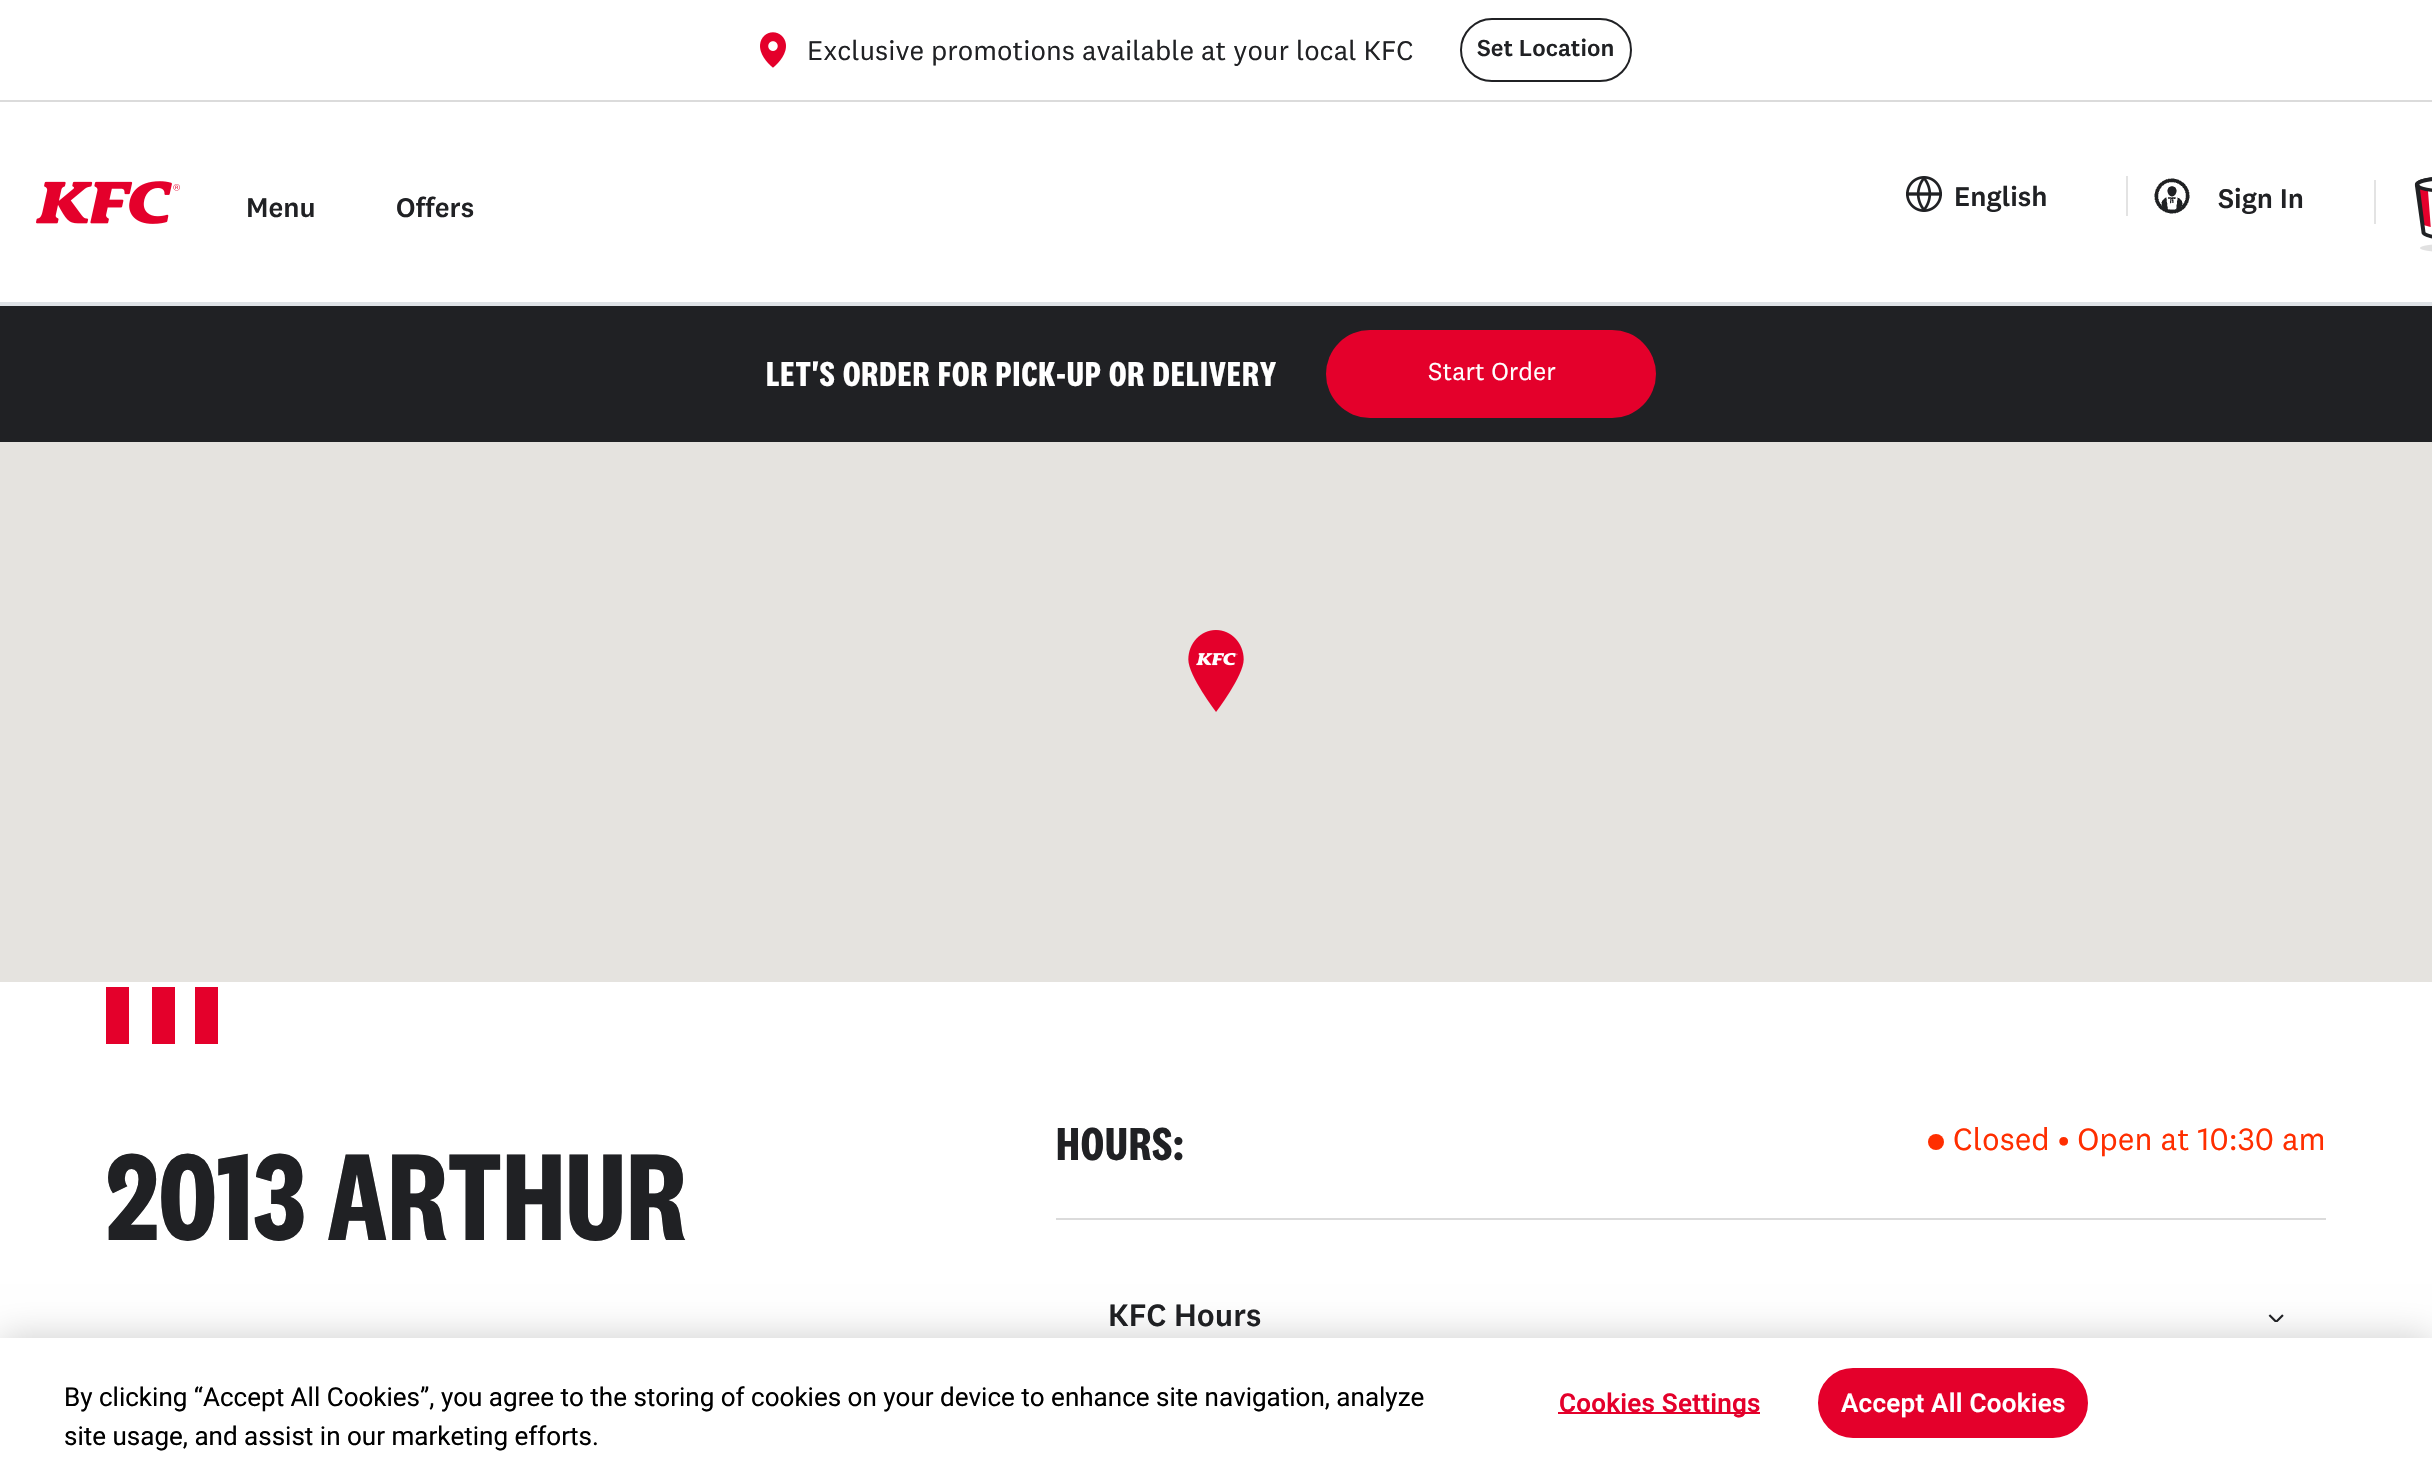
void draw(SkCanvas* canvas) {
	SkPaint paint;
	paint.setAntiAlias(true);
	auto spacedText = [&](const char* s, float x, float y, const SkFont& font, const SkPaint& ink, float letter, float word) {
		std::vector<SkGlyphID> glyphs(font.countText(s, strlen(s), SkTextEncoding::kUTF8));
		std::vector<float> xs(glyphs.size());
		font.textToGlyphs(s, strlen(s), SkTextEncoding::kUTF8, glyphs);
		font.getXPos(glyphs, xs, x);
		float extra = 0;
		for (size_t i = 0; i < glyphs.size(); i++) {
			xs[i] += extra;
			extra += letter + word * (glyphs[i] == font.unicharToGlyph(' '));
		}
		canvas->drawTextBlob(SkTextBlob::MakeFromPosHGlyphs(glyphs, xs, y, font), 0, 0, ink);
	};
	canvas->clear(0xffffffff);
	canvas->drawImageRect(SkImages::DeferredFromEncodedData(SkData::MakeFromFileName("img1.png")), SkRect::MakeXYWH(760, 32, 26, 36), SkSamplingOptions());
	SkFont f1(fontMgr->matchFamilyStyle("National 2", SkFontStyle::Normal()), 28);
	f1.setSubpixel(true);
	paint.setColor(0xff202124);
	canvas->drawString("Exclusive promotions available at your local KFC", 807, 60, f1, paint);
	paint.setStroke(true);
	paint.setStrokeWidth(2);
	canvas->drawRoundRect(SkRect::MakeXYWH(1461, 19, 170, 62), 31, 31, paint);
	SkFont f2(fontMgr->matchFamilyStyle("National 2", SkFontStyle(500, SkFontStyle::kNormal_Width, SkFontStyle::kUpright_Slant)), 24);
	f2.setSubpixel(true);
	paint.setStroke(false);
	canvas->drawString("Set Location", 1477, 56, f2, paint);
	paint.setColor(0xffdbdbdb);
	canvas->drawRect(SkRect::MakeXYWH(0, 100, 2432, 2), paint);
	canvas->drawImageRect(SkImages::DeferredFromEncodedData(SkData::MakeFromFileName("img2.png")), SkRect::MakeXYWH(36, 181, 144, 43), SkSamplingOptions());
	SkFont f3(fontMgr->matchFamilyStyle("National 2", SkFontStyle(500, SkFontStyle::kNormal_Width, SkFontStyle::kUpright_Slant)), 28);
	f3.setSubpixel(true);
	paint.setColor(0xff202124);
	canvas->drawString("Menu", 246, 217, f3, paint);
	canvas->drawString("Offers", 396, 217, f3, paint);
	paint.setColor(0xffe3e3e3);
	canvas->drawRect(SkRect::MakeXYWH(2126, 176, 2, 40), paint);
	canvas->drawImageRect(SkImages::DeferredFromEncodedData(SkData::MakeFromFileName("img3.png")), SkRect::MakeXYWH(1906, 176, 36, 36), SkSamplingOptions());
	paint.setColor(0xff202124);
	canvas->drawString("English", 1954, 206, f3, paint);
	paint.setColor(0xffe3e3e3);
	canvas->drawRect(SkRect::MakeXYWH(2374, 180, 2, 44), paint);
	canvas->drawImageRect(SkImages::DeferredFromEncodedData(SkData::MakeFromFileName("img4.png")), SkRect::MakeXYWH(2154, 178, 36, 36), SkSamplingOptions());
	paint.setColor(0xff202124);
	canvas->drawString("Sign In", 2218, 208, f3, paint);
	canvas->drawImageRect(SkImages::DeferredFromEncodedData(SkData::MakeFromFileName("img5.png")), SkRect::MakeXYWH(2414, 177, 18, 75), SkSamplingOptions());
	paint.setColor(0xffdee2e6);
	canvas->drawRect(SkRect::MakeXYWH(0, 302, 2432, 4), paint);
	paint.setColor(0xff202124);
	canvas->drawRect(SkRect::MakeXYWH(0, 306, 2432, 136), paint);
	SkFont f4(fontMgr->matchFamilyStyle("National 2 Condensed", SkFontStyle::Bold()), 36);
	f4.setSubpixel(true);
	paint.setColor(0xffffffff);
	spacedText("LET'S ORDER FOR PICK-UP OR DELIVERY", 766, 386, f4, paint, 1, 0);
	paint.setColor(0xffe4002b);
	canvas->drawRoundRect(SkRect::MakeXYWH(1326, 330, 330, 88), 44, 44, paint);
	SkFont f5(fontMgr->matchFamilyStyle("National 2", SkFontStyle::Normal()), 25.5);
	f5.setSubpixel(true);
	paint.setColor(0xffffffff);
	canvas->drawString("Start Order", 1428, 380, f5, paint);
	paint.setColor(0xffe5e3df);
	canvas->drawRect(SkRect::MakeXYWH(0, 442, 2432, 540), paint);
	canvas->drawImageRect(SkImages::DeferredFromEncodedData(SkData::MakeFromFileName("img6.png")), SkRect::MakeXYWH(1188, 630, 56, 82), SkSamplingOptions());
	paint.setColor(0xffe4002b);
	canvas->drawRect(SkRect::MakeXYWH(106, 987, 23, 57), paint);
	canvas->drawRect(SkRect::MakeXYWH(152, 987, 23, 57), paint);
	canvas->drawRect(SkRect::MakeXYWH(195, 987, 23, 57), paint);
	SkFont f6(fontMgr->matchFamilyStyle("National 2 Condensed", SkFontStyle::Bold()), 128);
	f6.setSubpixel(true);
	paint.setColor(0xff202124);
	canvas->drawString("2013 ARTHUR", 106, 1240, f6, paint);
	SkFont f7(fontMgr->matchFamilyStyle("National 2 Condensed", SkFontStyle::Bold()), 48);
	f7.setSubpixel(true);
	spacedText("HOURS:", 1056, 1160, f7, paint, 1, 0);
	paint.setColor(0xffff2e00);
	canvas->drawCircle(1936, 1142, 8, paint);
	SkFont f8(fontMgr->matchFamilyStyle("National 2", SkFontStyle::Normal()), 32);
	f8.setSubpixel(true);
	canvas->drawString("Closed • Open at 10:30 am", 1953, 1150, f8, paint);
	paint.setColor(0xffdbdbdb);
	canvas->drawRect(SkRect::MakeXYWH(1056, 1218, 1270, 2), paint);
	SkFont f9(fontMgr->matchFamilyStyle("National 2", SkFontStyle(500, SkFontStyle::kNormal_Width, SkFontStyle::kUpright_Slant)), 32);
	f9.setSubpixel(true);
	paint.setColor(0xff202124);
	canvas->drawString("KFC Hours", 1108, 1326, f9, paint);
	canvas->drawImageRect(SkImages::DeferredFromEncodedData(SkData::MakeFromFileName("img7.png")), SkRect::MakeXYWH(2268, 1314, 16, 8), SkSamplingOptions());
	paint.setColor(0x33000000);
	paint.setMaskFilter(SkMaskFilter::MakeBlur(kNormal_SkBlurStyle, 18));
	canvas->drawRect(SkRect::MakeXYWH(0, 1338, 2432, 138), paint);
	paint.setMaskFilter(nullptr);
	paint.setColor(0xffffffff);
	canvas->drawRect(SkRect::MakeXYWH(0, 1338, 2432, 138), paint);
	SkFont f10(fontMgr->matchFamilyStyle("Roboto", SkFontStyle::Normal()), 26.02);
	f10.setSubpixel(true);
	paint.setColor(0xff000000);
	canvas->drawString("By clicking “Accept All Cookies”, you agree to the storing of cookies on your device to enhance site navigation, analyze", 64, 1406, f10, paint);
	canvas->drawString("site usage, and assist in our marketing efforts.", 64, 1445, f10, paint);
	paint.setColor(0xffe4002b);
	canvas->drawRect(SkRect::MakeXYWH(1558, 1412, 202, 2), paint);
	SkFont f11(fontMgr->matchFamilyStyle("Roboto", SkFontStyle(600, SkFontStyle::kNormal_Width, SkFontStyle::kUpright_Slant)), 26.02);
	f11.setSubpixel(true);
	spacedText("Cookies Settings", 1559, 1412, f11, paint, 0.25, 0);
	canvas->drawRoundRect(SkRect::MakeXYWH(1819, 1369, 268, 68), 34, 34, paint);
	paint.setStroke(true);
	canvas->drawRoundRect(SkRect::MakeXYWH(1819, 1369, 268, 68), 34, 34, paint);
	paint.setStroke(false);
	paint.setColor(0xffffffff);
	spacedText("Accept All Cookies", 1841, 1412, f11, paint, 0.25, 0);
}
